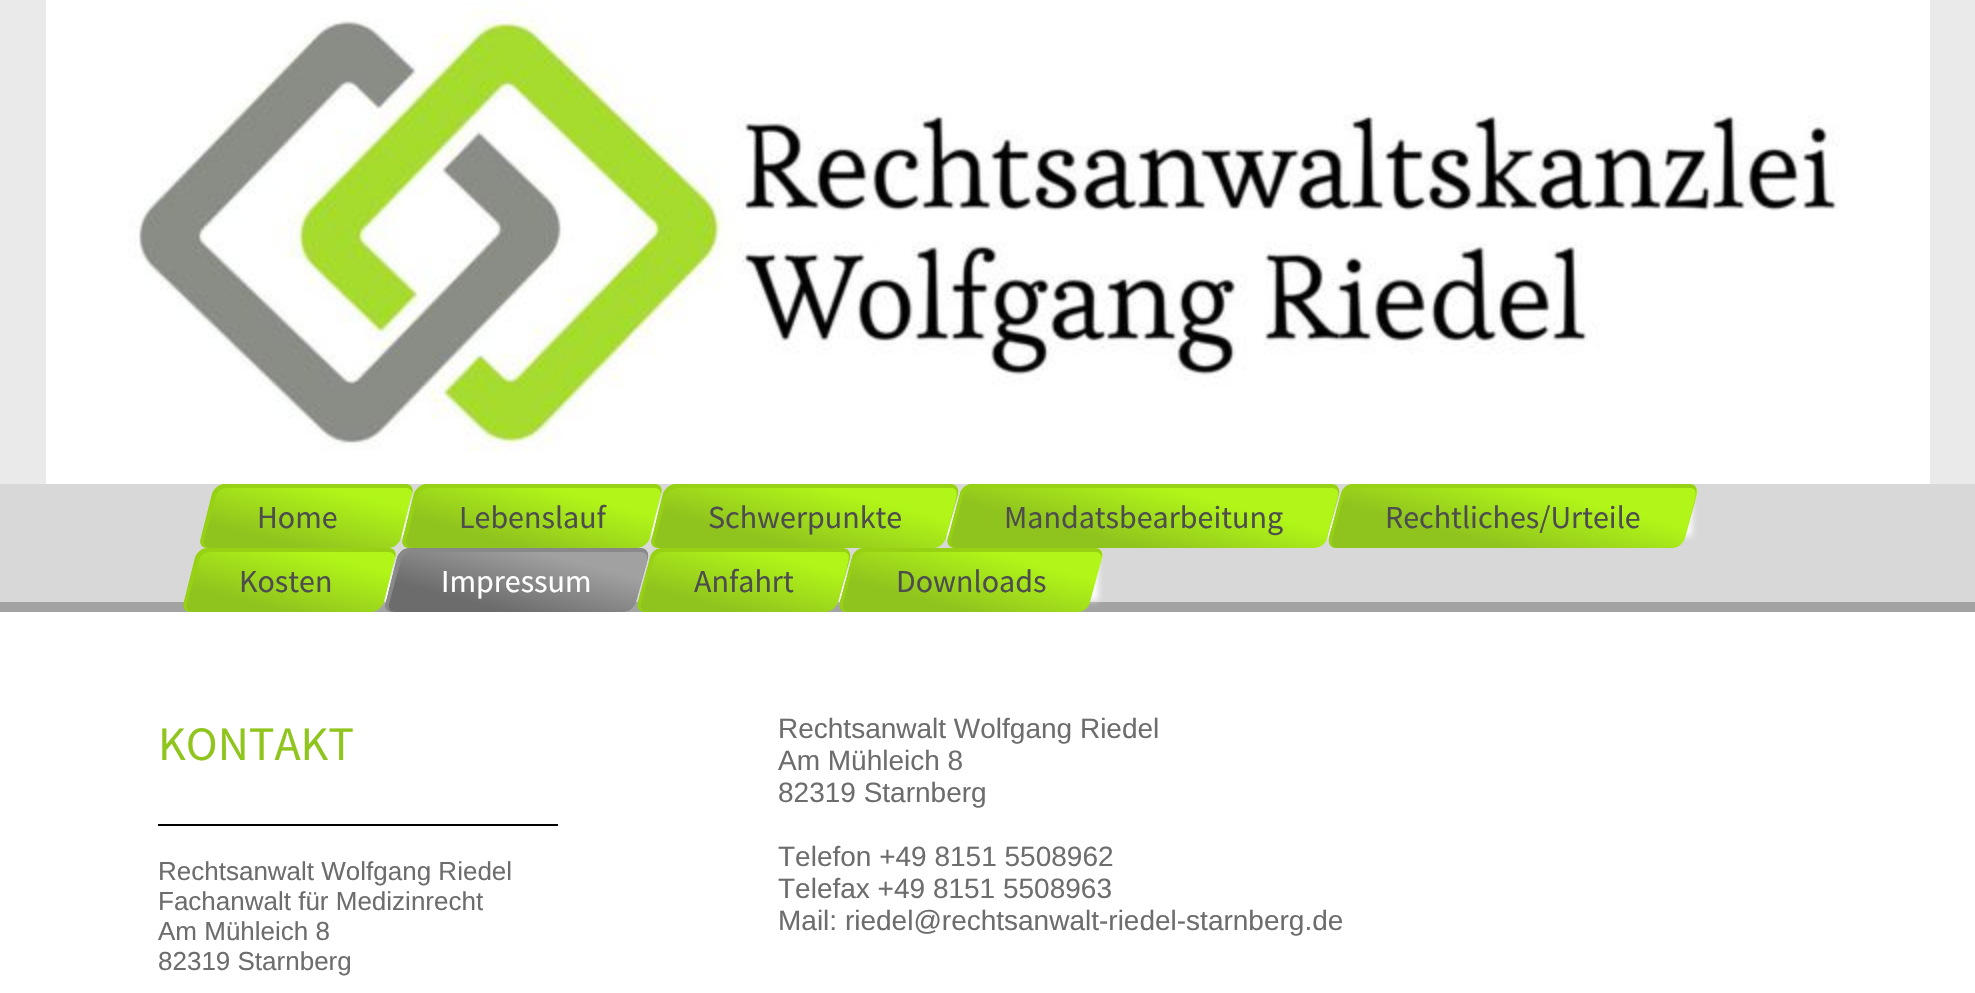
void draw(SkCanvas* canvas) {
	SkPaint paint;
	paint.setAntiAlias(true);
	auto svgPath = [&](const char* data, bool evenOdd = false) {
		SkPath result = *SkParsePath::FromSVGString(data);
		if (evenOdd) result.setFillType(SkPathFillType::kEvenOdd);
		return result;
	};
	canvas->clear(0xffffffff);
	paint.setColor(0xffeaeaea);
	canvas->drawRect(SkRect::MakeXYWH(0, 0, 1975, 484), paint);
	paint.setStroke(true);
	paint.setStrokeWidth(2);
	paint.setColor(0xffffffff);
	canvas->drawRect(SkRect::MakeXYWH(47, 1, 1882, 482), paint);
	canvas->drawImageRect(SkImages::DeferredFromEncodedData(SkData::MakeFromFileName("img1.png")), SkRect::MakeXYWH(48, 2, 1880, 480), SkSamplingOptions());
	paint.setStroke(false);
	paint.setColor(0xffd8d8d8);
	canvas->drawRect(SkRect::MakeXYWH(0, 484, 1975, 118), paint);
	paint.setColor(0xffa3a3a3);
	canvas->drawRect(SkRect::MakeXYWH(0, 602, 1975, 10), paint);
	paint.setColor(0xffffffff);
	paint.setMaskFilter(SkMaskFilter::MakeBlur(kNormal_SkBlurStyle, 3));
	canvas->drawRect(SkRect::MakeXYWH(232, 496, 176, 40), paint);
	paint.setMaskFilter(nullptr);
	{
		const SkColor colors[] = {0xffb1f618, 0xff8fc31e};
		const float stops[] = {0, 1};
		const SkPoint ends[] = {{315, 484}, {298, 548}};
		paint.setShader(SkGradientShader::MakeLinear(ends, colors, stops, 2, SkTileMode::kClamp));
		paint.setAlpha(255);
	}
	canvas->drawPath(svgPath("M225 484H405C411 484 414 488 412 494L401 538C399 544 394 548 388 548H208C202 548 199 544 201 538L212 494C214 488 220 484 225 484Z"), paint);
	paint.setShader(nullptr);
	paint.setColor(0xff96d114);
	canvas->drawPath(svgPath("M226 488H406C410 488 413 491 412 495V494C414 488 411 484 405 484H225C220 484 214 488 212 494L201 538C199 544 202 548 208 548H210C206 548 203 544 204 540L216 496C217 492 222 488 226 488ZM408 510L400 540Z", true), paint);
	SkFont f1(fontMgr->matchFamilyStyle("Source Sans Pro", SkFontStyle::Normal()), 32);
	f1.setSubpixel(true);
	paint.setColor(0xff4d4d4d);
	canvas->drawString("Home", 257, 528, f1, paint);
	paint.setColor(0xffffffff);
	paint.setMaskFilter(SkMaskFilter::MakeBlur(kNormal_SkBlurStyle, 3));
	canvas->drawRect(SkRect::MakeXYWH(434, 496, 224, 40), paint);
	paint.setMaskFilter(nullptr);
	{
		const SkColor colors[] = {0xffb1f618, 0xff8fc31e};
		const float stops[] = {0, 1};
		const SkPoint ends[] = {{541, 484}, {523, 548}};
		paint.setShader(SkGradientShader::MakeLinear(ends, colors, stops, 2, SkTileMode::kClamp));
		paint.setAlpha(255);
	}
	canvas->drawPath(svgPath("M427 484H654C660 484 663 488 661 494L650 538C648 544 642 548 637 548H410C404 548 401 544 403 538L414 494C416 488 422 484 427 484Z"), paint);
	paint.setShader(nullptr);
	paint.setColor(0xff96d114);
	canvas->drawPath(svgPath("M428 488H655C659 488 661 491 661 495V494C663 488 660 484 654 484H427C422 484 416 488 414 494L403 538C401 544 404 548 410 548H412C408 548 405 544 406 540L418 496C419 492 424 488 428 488ZM655 516L649 539Z", true), paint);
	paint.setColor(0xff4d4d4d);
	canvas->drawString("Lebenslauf", 459, 528, f1, paint);
	paint.setColor(0xffffffff);
	paint.setMaskFilter(SkMaskFilter::MakeBlur(kNormal_SkBlurStyle, 3));
	canvas->drawRect(SkRect::MakeXYWH(684, 496, 270, 40), paint);
	paint.setMaskFilter(nullptr);
	{
		const SkColor colors[] = {0xffb1f618, 0xff8fc31e};
		const float stops[] = {0, 1};
		const SkPoint ends[] = {{813, 484}, {796, 548}};
		paint.setShader(SkGradientShader::MakeLinear(ends, colors, stops, 2, SkTileMode::kClamp));
		paint.setAlpha(255);
	}
	canvas->drawPath(svgPath("M676 484H950C956 484 959 488 958 494L946 538C944 544 939 548 933 548H659C653 548 650 544 652 538L663 494C665 488 671 484 676 484Z"), paint);
	paint.setShader(nullptr);
	paint.setColor(0xff96d114);
	canvas->drawPath(svgPath("M677 488H951C960 488 956 498 955 503L945 541L958 494C959 488 956 484 950 484H676C671 484 665 488 663 494L652 538C650 544 653 548 659 548H661C657 548 654 544 655 540L667 496C668 492 673 488 677 488Z"), paint);
	paint.setColor(0xff4d4d4d);
	canvas->drawString("Schwerpunkte", 708, 528, f1, paint);
	paint.setColor(0xffffffff);
	paint.setMaskFilter(SkMaskFilter::MakeBlur(kNormal_SkBlurStyle, 3));
	canvas->drawRect(SkRect::MakeXYWH(980, 496, 354, 40), paint);
	paint.setMaskFilter(nullptr);
	{
		const SkColor colors[] = {0xffb1f618, 0xff8fc31e};
		const float stops[] = {0, 1};
		const SkPoint ends[] = {{1152, 484}, {1135, 548}};
		paint.setShader(SkGradientShader::MakeLinear(ends, colors, stops, 2, SkTileMode::kClamp));
		paint.setAlpha(255);
	}
	canvas->drawPath(svgPath("M972 484H1331C1337 484 1340 488 1339 494L1327 538C1326 544 1320 548 1314 548H955C950 548 946 544 948 538L960 494C961 488 967 484 972 484Z"), paint);
	paint.setShader(nullptr);
	paint.setColor(0xff96d114);
	canvas->drawPath(svgPath("M973 488H1332C1337 488 1339 492 1338 496L1326 541L1327 538L1339 494C1340 488 1337 484 1331 484H972C967 484 961 488 960 494L948 538C946 544 950 548 955 548H957C953 548 950 544 951 540L963 496C964 492 969 488 973 488Z"), paint);
	paint.setColor(0xff4d4d4d);
	canvas->drawString("Mandatsbearbeitung", 1004, 528, f1, paint);
	paint.setColor(0xffffffff);
	paint.setMaskFilter(SkMaskFilter::MakeBlur(kNormal_SkBlurStyle, 3));
	canvas->drawRect(SkRect::MakeXYWH(1360, 496, 332, 40), paint);
	paint.setMaskFilter(nullptr);
	{
		const SkColor colors[] = {0xffb1f618, 0xff8fc31e};
		const float stops[] = {0, 1};
		const SkPoint ends[] = {{1521, 484}, {1504, 548}};
		paint.setShader(SkGradientShader::MakeLinear(ends, colors, stops, 2, SkTileMode::kClamp));
		paint.setAlpha(255);
	}
	canvas->drawPath(svgPath("M1353 484H1689C1695 484 1698 488 1697 494L1685 538C1683 544 1678 548 1672 548H1336C1331 548 1328 544 1329 538L1341 494C1342 488 1348 484 1353 484Z"), paint);
	paint.setShader(nullptr);
	paint.setColor(0xff96d114);
	canvas->drawPath(svgPath("M1354 488H1690C1699 488 1695 498 1694 503L1684 540L1695 501C1696 495 1700 484 1689 484H1353C1343 484 1341 493 1339 501L1333 523C1331 532 1323 548 1338 548C1334 548 1331 544 1332 540L1344 496C1345 492 1350 488 1354 488Z"), paint);
	paint.setColor(0xff4d4d4d);
	canvas->drawString("Rechtliches/Urteile", 1385, 528, f1, paint);
	paint.setColor(0xffffffff);
	paint.setMaskFilter(SkMaskFilter::MakeBlur(kNormal_SkBlurStyle, 3));
	canvas->drawRect(SkRect::MakeXYWH(216, 560, 176, 40), paint);
	paint.setMaskFilter(nullptr);
	{
		const SkColor colors[] = {0xffb1f618, 0xff8fc31e};
		const float stops[] = {0, 1};
		const SkPoint ends[] = {{298, 548}, {281, 612}};
		paint.setShader(SkGradientShader::MakeLinear(ends, colors, stops, 2, SkTileMode::kClamp));
		paint.setAlpha(255);
	}
	canvas->drawPath(svgPath("M208 548H388C394 548 397 552 395 558L384 602C382 608 376 612 371 612H191C185 612 182 608 184 602L195 558C197 552 202 548 208 548Z"), paint);
	paint.setShader(nullptr);
	paint.setColor(0xff96d114);
	canvas->drawPath(svgPath("M209 552H389C392 552 395 555 395 558C397 552 394 548 388 548H208C202 548 197 552 195 558L184 602C182 608 185 612 191 612H193C188 612 186 608 187 604L199 560C200 556 205 552 209 552Z"), paint);
	paint.setColor(0xff4d4d4d);
	canvas->drawString("Kosten", 239, 592, f1, paint);
	{
		const SkColor colors[] = {0xffa1a1a1, 0xff6c6c6c};
		const float stops[] = {0, 1};
		const SkPoint ends[] = {{525, 548}, {508, 612}};
		paint.setShader(SkGradientShader::MakeLinear(ends, colors, stops, 2, SkTileMode::kClamp));
		paint.setAlpha(255);
	}
	canvas->drawPath(svgPath("M410 548H640C646 548 649 552 648 558L636 602C634 608 629 612 623 612H393C387 612 384 608 386 602L397 558C399 552 404 548 410 548Z"), paint);
	paint.setShader(nullptr);
	paint.setColor(0xff898989);
	canvas->drawPath(svgPath("M411 552H641C646 552 648 556 647 560L635 605L636 602L648 558C649 552 646 548 640 548H410C404 548 399 552 397 558L386 602C384 608 387 612 393 612H395C390 612 388 608 389 604L401 560C402 556 407 552 411 552Z"), paint);
	paint.setColor(0xffffffff);
	canvas->drawString("Impressum", 441, 592, f1, paint);
	paint.setMaskFilter(SkMaskFilter::MakeBlur(kNormal_SkBlurStyle, 3));
	canvas->drawRect(SkRect::MakeXYWH(670, 560, 176, 40), paint);
	paint.setMaskFilter(nullptr);
	{
		const SkColor colors[] = {0xffb1f618, 0xff8fc31e};
		const float stops[] = {0, 1};
		const SkPoint ends[] = {{752, 548}, {735, 612}};
		paint.setShader(SkGradientShader::MakeLinear(ends, colors, stops, 2, SkTileMode::kClamp));
		paint.setAlpha(255);
	}
	canvas->drawPath(svgPath("M662 548H842C848 548 851 552 850 558L838 602C836 608 831 612 825 612H645C640 612 636 608 638 602L650 558C651 552 657 548 662 548Z"), paint);
	paint.setShader(nullptr);
	paint.setColor(0xff96d114);
	canvas->drawPath(svgPath("M663 552H843C852 552 848 562 847 567L837 605L838 602L850 558C851 552 848 548 842 548H662C657 548 651 552 650 558L638 602C636 608 640 612 645 612H647C643 612 640 608 641 604L653 560C654 556 659 552 663 552Z"), paint);
	paint.setColor(0xff4d4d4d);
	canvas->drawString("Anfahrt", 694, 592, f1, paint);
	paint.setColor(0xffffffff);
	paint.setMaskFilter(SkMaskFilter::MakeBlur(kNormal_SkBlurStyle, 3));
	canvas->drawRect(SkRect::MakeXYWH(872, 560, 226, 40), paint);
	paint.setMaskFilter(nullptr);
	{
		const SkColor colors[] = {0xffb1f618, 0xff8fc31e};
		const float stops[] = {0, 1};
		const SkPoint ends[] = {{980, 548}, {962, 612}};
		paint.setShader(SkGradientShader::MakeLinear(ends, colors, stops, 2, SkTileMode::kClamp));
		paint.setAlpha(255);
	}
	canvas->drawPath(svgPath("M864 548H1095C1100 548 1104 552 1102 558L1090 602C1089 608 1083 612 1078 612H847C842 612 838 608 840 602L852 558C853 552 859 548 864 548Z"), paint);
	paint.setShader(nullptr);
	paint.setColor(0xff96d114);
	canvas->drawPath(svgPath("M865 552H1096C1099 552 1102 555 1102 558C1103 552 1100 548 1095 548H864C859 548 853 552 852 558L840 602C838 608 842 612 847 612H849C845 612 842 608 843 604L855 560C856 556 861 552 865 552Z"), paint);
	paint.setColor(0xff4d4d4d);
	canvas->drawString("Downloads", 896, 592, f1, paint);
	SkFont f2(fontMgr->matchFamilyStyle("Source Sans Pro", SkFontStyle::Normal()), 48);
	f2.setSubpixel(true);
	paint.setColor(0xff8fc51d);
	canvas->drawString("KONTAKT", 158, 760, f2, paint);
	paint.setColor(0xff000000);
	canvas->drawRect(SkRect::MakeXYWH(158, 824, 400, 2), paint);
	SkFont f3(fontMgr->matchFamilyStyle("Liberation Sans", SkFontStyle::Normal()), 26);
	f3.setSubpixel(true);
	paint.setColor(0xff6d6d6d);
	canvas->drawString("Rechtsanwalt Wolfgang Riedel", 158, 880, f3, paint);
	canvas->drawString("Fachanwalt für Medizinrecht", 158, 910, f3, paint);
	canvas->drawString("Am Mühleich 8", 158, 940, f3, paint);
	canvas->drawString("82319 Starnberg", 158, 970, f3, paint);
	SkFont f4(fontMgr->matchFamilyStyle("Liberation Sans", SkFontStyle::Normal()), 28);
	f4.setSubpixel(true);
	canvas->drawString("Rechtsanwalt Wolfgang Riedel", 778, 738, f4, paint);
	canvas->drawString("Am Mühleich 8", 778, 770, f4, paint);
	canvas->drawString("82319 Starnberg", 778, 802, f4, paint);
	canvas->drawString("Telefon +49 8151 5508962", 778, 866, f4, paint);
	canvas->drawString("Telefax +49 8151 5508963", 778, 898, f4, paint);
	canvas->drawString("Mail: riedel@rechtsanwalt-riedel-starnberg.de", 778, 930, f4, paint);
}
